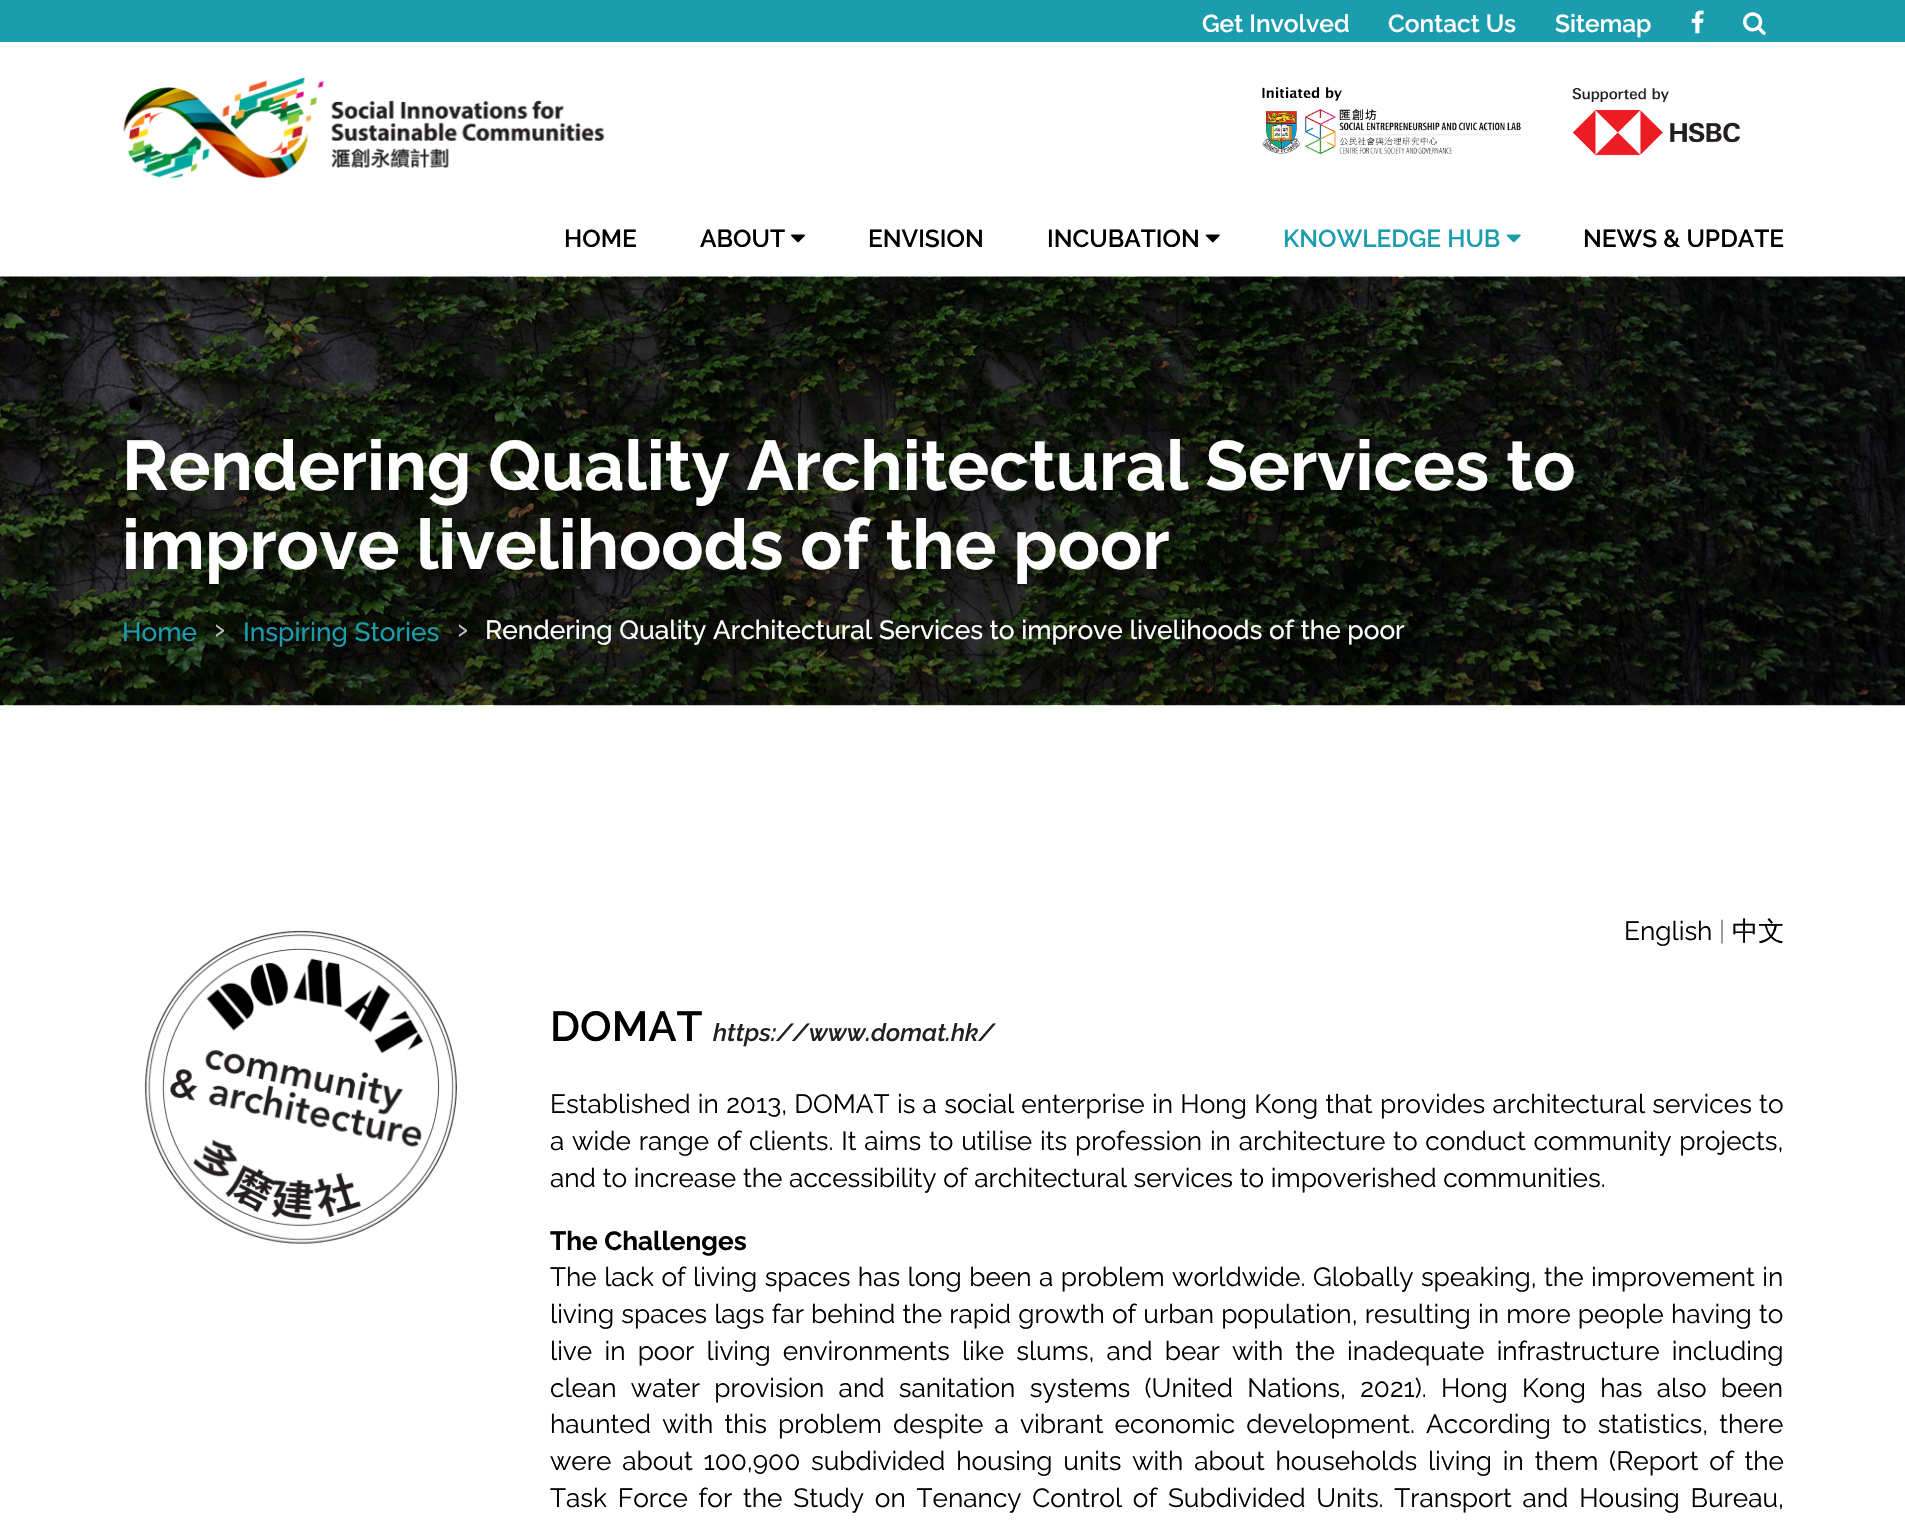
void draw(SkCanvas* canvas) {
	SkPaint paint;
	paint.setAntiAlias(true);
	auto spacedText = [&](const char* s, float x, float y, const SkFont& font, const SkPaint& ink, float letter, float word) {
		std::vector<SkGlyphID> glyphs(font.countText(s, strlen(s), SkTextEncoding::kUTF8));
		std::vector<float> xs(glyphs.size());
		font.textToGlyphs(s, strlen(s), SkTextEncoding::kUTF8, glyphs);
		font.getXPos(glyphs, xs, x);
		float extra = 0;
		for (size_t i = 0; i < glyphs.size(); i++) {
			xs[i] += extra;
			extra += letter + word * (glyphs[i] == font.unicharToGlyph(' '));
		}
		canvas->drawTextBlob(SkTextBlob::MakeFromPosHGlyphs(glyphs, xs, y, font), 0, 0, ink);
	};
	canvas->clear(0xffffffff);
	paint.setColor(0xff1b9dae);
	canvas->drawRect(SkRect::MakeXYWH(0, 0, 1905, 42), paint);
	SkFont f1(fontMgr->matchFamilyStyle("Raleway", SkFontStyle(600, SkFontStyle::kNormal_Width, SkFontStyle::kUpright_Slant)), 24.5);
	f1.setSubpixel(true);
	paint.setColor(0xffffffff);
	canvas->drawString("Get Involved", 1202, 32, f1, paint);
	canvas->drawString("Contact Us", 1388, 32, f1, paint);
	canvas->drawString("Sitemap", 1555, 32, f1, paint);
	canvas->drawImageRect(SkImages::DeferredFromEncodedData(SkData::MakeFromFileName("img1.png")), SkRect::MakeXYWH(1691, 10, 13, 24), SkSamplingOptions());
	canvas->drawImageRect(SkImages::DeferredFromEncodedData(SkData::MakeFromFileName("img2.png")), SkRect::MakeXYWH(1743, 12, 23, 23), SkSamplingOptions());
	canvas->drawImageRect(SkImages::DeferredFromEncodedData(SkData::MakeFromFileName("img3.png")), SkRect::MakeXYWH(123, 77, 482, 102), SkSamplingOptions());
	canvas->drawImageRect(SkImages::DeferredFromEncodedData(SkData::MakeFromFileName("img4.png")), SkRect::MakeXYWH(1262, 86, 259, 69), SkSamplingOptions());
	canvas->drawImageRect(SkImages::DeferredFromEncodedData(SkData::MakeFromFileName("img5.png")), SkRect::MakeXYWH(1572, 88, 168, 68), SkSamplingOptions());
	paint.setColor(0xff000000);
	canvas->drawString("HOME", 564, 247, f1, paint);
	canvas->drawString("ABOUT", 700, 247, f1, paint);
	canvas->drawImageRect(SkImages::DeferredFromEncodedData(SkData::MakeFromFileName("img6.png")), SkRect::MakeXYWH(791, 234, 14, 9), SkSamplingOptions());
	canvas->drawString("ENVISION", 868, 247, f1, paint);
	canvas->drawString("INCUBATION", 1047, 247, f1, paint);
	canvas->drawImageRect(SkImages::DeferredFromEncodedData(SkData::MakeFromFileName("img7.png")), SkRect::MakeXYWH(1205, 234, 15, 9), SkSamplingOptions());
	paint.setColor(0xff1b9dae);
	canvas->drawString("KNOWLEDGE HUB", 1283, 247, f1, paint);
	canvas->drawImageRect(SkImages::DeferredFromEncodedData(SkData::MakeFromFileName("img8.png")), SkRect::MakeXYWH(1506, 234, 15, 9), SkSamplingOptions());
	paint.setColor(0xff000000);
	canvas->drawString("NEWS & UPDATE", 1583, 247, f1, paint);
	canvas->drawImageRect(SkImages::DeferredFromEncodedData(SkData::MakeFromFileName("img9.png")), SkRect::MakeXYWH(0, 276, 1905, 430), SkSamplingOptions());
	SkFont f2(fontMgr->matchFamilyStyle("Raleway", SkFontStyle::Bold()), 70);
	f2.setSubpixel(true);
	paint.setColor(0xffffffff);
	canvas->drawString("Rendering Quality Architectural Services to", 122, 490, f2, paint);
	canvas->drawString("improve livelihoods of the poor", 122, 569, f2, paint);
	SkFont f3(fontMgr->matchFamilyStyle("Raleway", SkFontStyle(500, SkFontStyle::kNormal_Width, SkFontStyle::kUpright_Slant)), 26.25);
	f3.setSubpixel(true);
	paint.setColor(0xff1b9dae);
	canvas->drawString("Home", 122, 641, f3, paint);
	SkFont f4(fontMgr->matchFamilyStyle("Raleway", SkFontStyle(500, SkFontStyle::kNormal_Width, SkFontStyle::kUpright_Slant)), 32);
	f4.setSubpixel(true);
	paint.setColor(0xffb7bab5);
	canvas->drawString("›", 214, 639, f4, paint);
	paint.setColor(0xff1b9dae);
	canvas->drawString("Inspiring Stories", 243, 641, f3, paint);
	paint.setColor(0xffb7bab5);
	canvas->drawString("›", 457, 639, f4, paint);
	paint.setColor(0xffffffff);
	canvas->drawString("Rendering Quality Architectural Services to improve livelihoods of the poor", 485, 639, f3, paint);
	canvas->drawImageRect(SkImages::DeferredFromEncodedData(SkData::MakeFromFileName("img10.png")), SkRect::MakeXYWH(144, 930, 313, 314), SkSamplingOptions());
	SkFont f5(fontMgr->matchFamilyStyle("Raleway", SkFontStyle::Normal()), 26.25);
	f5.setSubpixel(true);
	paint.setColor(0xff000000);
	canvas->drawString("English", 1624, 940, f5, paint);
	paint.setColor(0xff898989);
	canvas->drawString("|", 1719, 940, f5, paint);
	SkFont f6(fontMgr->matchFamilyStyle("WenQuanYi Zen Hei", SkFontStyle(500, SkFontStyle::kNormal_Width, SkFontStyle::kUpright_Slant)), 26.25);
	f6.setSubpixel(true);
	paint.setColor(0xff000000);
	canvas->drawString("中文", 1732, 940, f6, paint);
	SkFont f7(fontMgr->matchFamilyStyle("Raleway", SkFontStyle(600, SkFontStyle::kNormal_Width, SkFontStyle::kUpright_Slant)), 42);
	f7.setSubpixel(true);
	canvas->drawString("DOMAT", 550, 1041, f7, paint);
	SkFont f8(fontMgr->matchFamilyStyle("Raleway", SkFontStyle(600, SkFontStyle::kNormal_Width, SkFontStyle::kItalic_Slant)), 24.5);
	f8.setSubpixel(true);
	paint.setColor(0xff212121);
	canvas->drawString("https://www.domat.hk/", 713, 1041, f8, paint);
	paint.setColor(0xff000000);
	spacedText("Established in 2013, DOMAT is a social enterprise in Hong Kong that provides architectural services to", 550, 1113, f5, paint, 0, 0.6);
	spacedText("a wide range of clients. It aims to utilise its profession in architecture to conduct community projects,", 550, 1150, f5, paint, 0, 1.1);
	canvas->drawString("and to increase the accessibility of architectural services to impoverished communities.", 550, 1187, f5, paint);
	SkFont f9(fontMgr->matchFamilyStyle("Raleway", SkFontStyle::Bold()), 26.25);
	f9.setSubpixel(true);
	canvas->drawString("The Challenges", 550, 1250, f9, paint);
	spacedText("The lack of living spaces has long been a problem worldwide. Globally speaking, the improvement in", 550, 1286, f5, paint, 0, 0.75);
	spacedText("living spaces lags far behind the rapid growth of urban population, resulting in more people having to", 550, 1323, f5, paint, 0, 0.5);
	spacedText("live in poor living environments like slums, and bear with the inadequate infrastructure including", 550, 1360, f5, paint, 0, 5.5);
	spacedText("clean water provision and sanitation systems (United Nations, 2021). Hong Kong has also been", 550, 1397, f5, paint, 0, 7.6);
	spacedText("haunted with this problem despite a vibrant economic development. According to statistics, there", 550, 1433, f5, paint, 0, 4.4);
	spacedText("were about 100,900 subdivided housing units with about households living in them (Report of the", 550, 1470, f5, paint, 0, 4.1);
	spacedText("Task Force for the Study on Tenancy Control of Subdivided Units. Transport and Housing Bureau,", 550, 1507, f5, paint, 0, 4.1);
}
